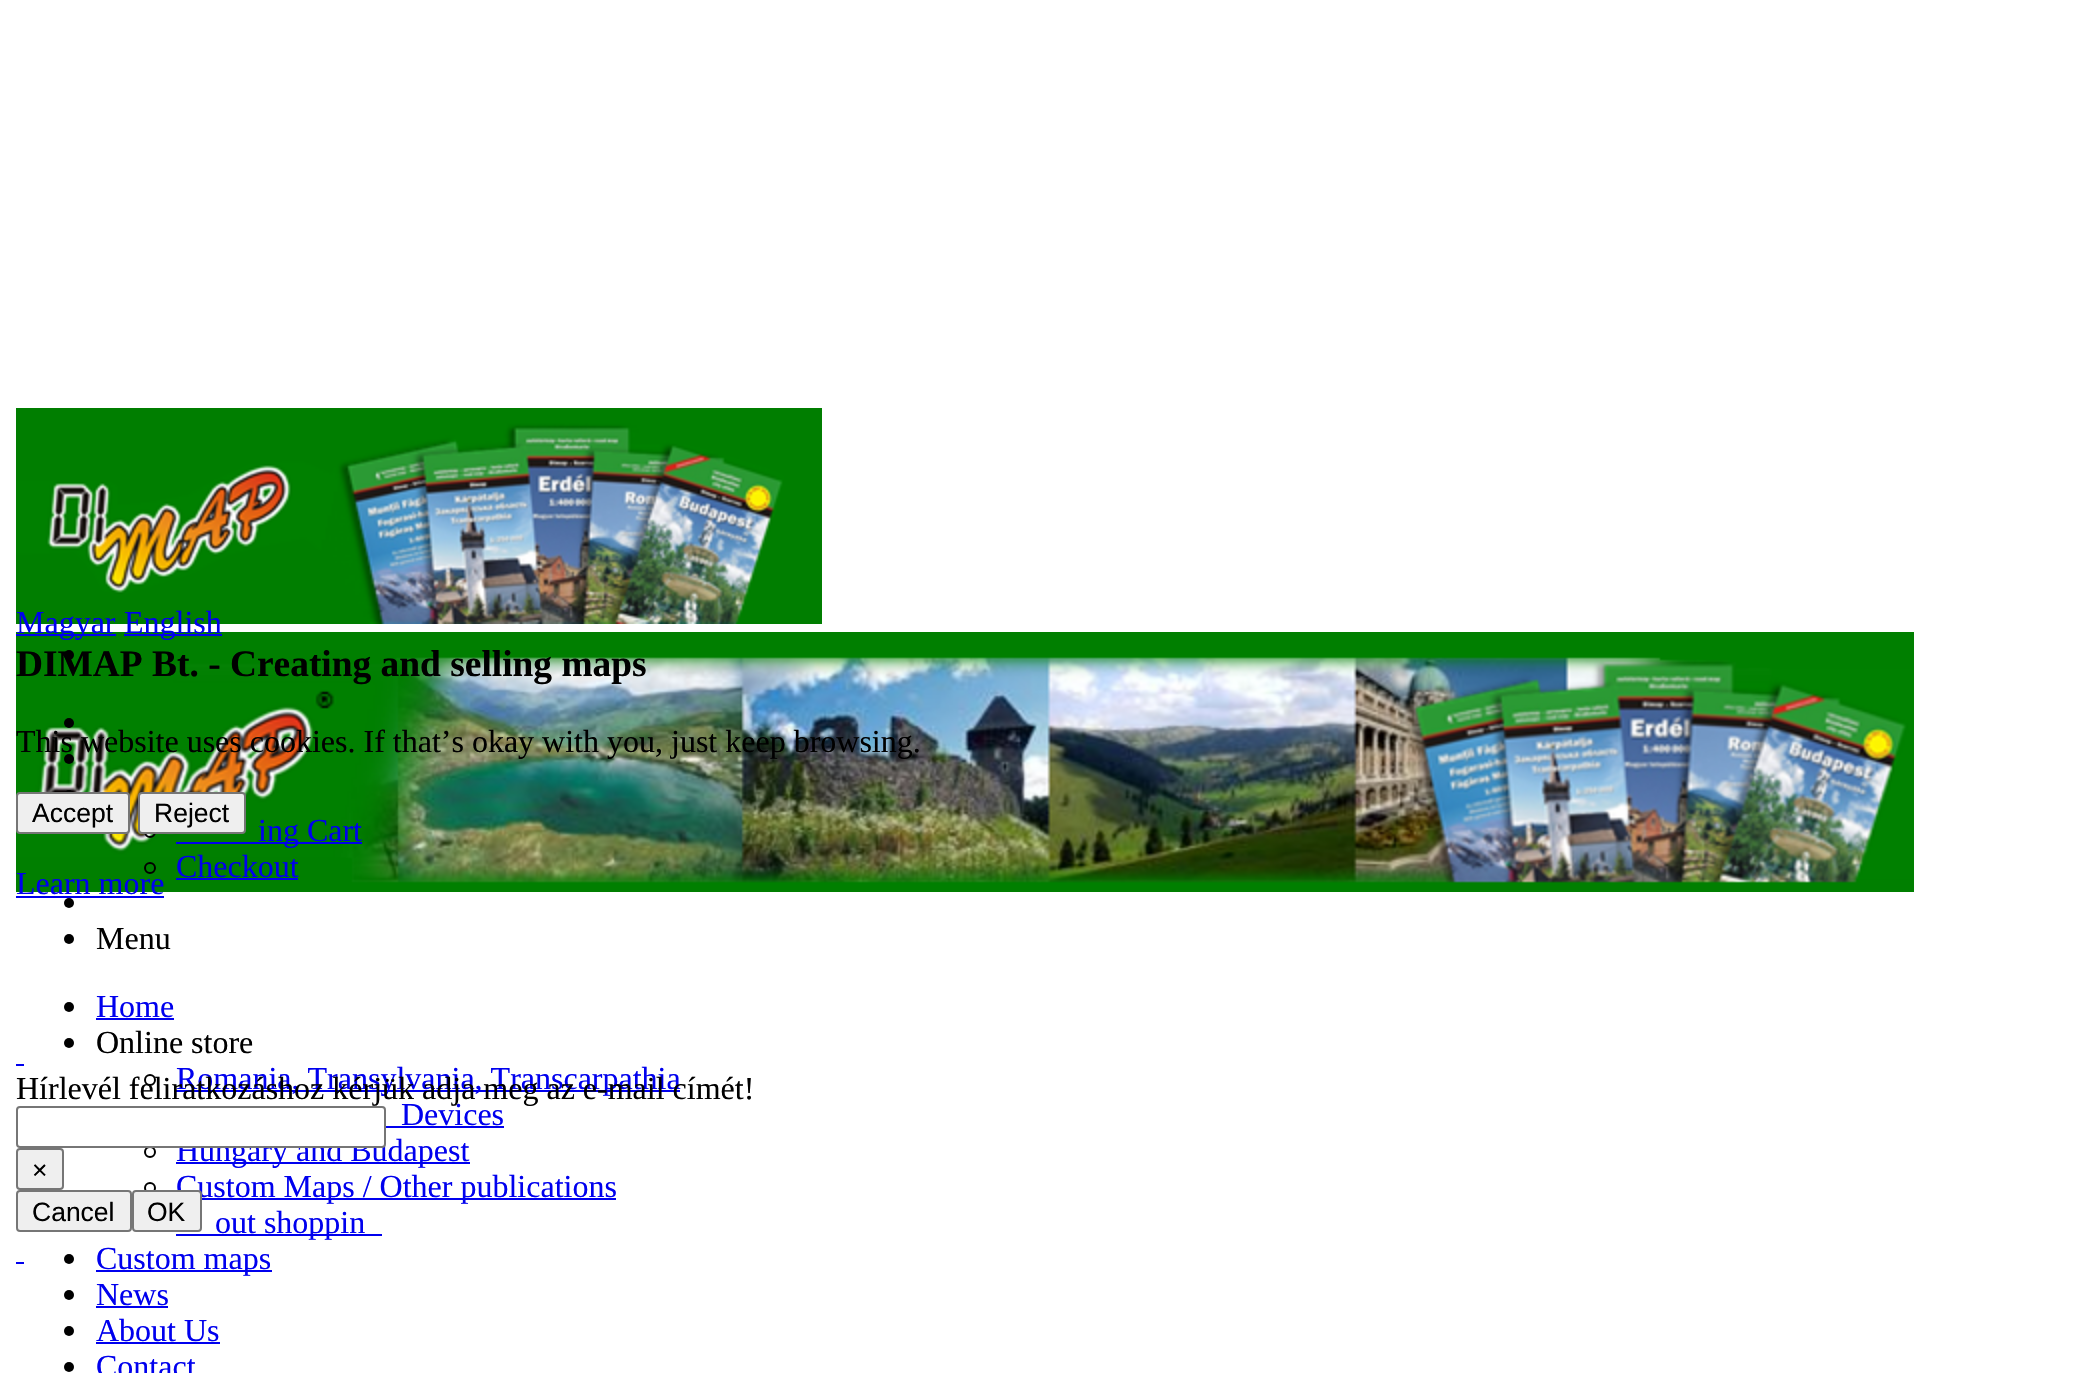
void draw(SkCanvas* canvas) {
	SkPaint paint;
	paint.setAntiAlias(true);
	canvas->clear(0xffffffff);
	canvas->drawImageRect(SkImages::DeferredFromEncodedData(SkData::MakeFromFileName("img1.png")), SkRect::MakeXYWH(16, 408, 806, 216), SkSamplingOptions());
	canvas->drawImageRect(SkImages::DeferredFromEncodedData(SkData::MakeFromFileName("img2.png")), SkRect::MakeXYWH(16, 632, 1898, 260), SkSamplingOptions());
	paint.setColor(0xff0000ee);
	canvas->drawRect(SkRect::MakeXYWH(16, 634, 100, 2), paint);
	SkFont f1(fontMgr->matchFamilyStyle("Liberation Serif", SkFontStyle::Normal()), 32);
	f1.setSubpixel(true);
	canvas->drawString("Magyar", 16, 633, f1, paint);
	canvas->drawRect(SkRect::MakeXYWH(124, 634, 98, 2), paint);
	canvas->drawString("English", 124, 633, f1, paint);
	paint.setColor(0xff000000);
	canvas->drawCircle(69, 655, 5, paint);
	canvas->drawCircle(69, 723, 5, paint);
	canvas->drawCircle(69, 759, 5, paint);
	canvas->drawCircle(69, 795, 5, paint);
	paint.setStroke(true);
	paint.setStrokeWidth(2);
	canvas->drawCircle(150, 832, 5, paint);
	paint.setStroke(false);
	paint.setColor(0xff0000ee);
	canvas->drawRect(SkRect::MakeXYWH(176, 842, 186, 2), paint);
	canvas->drawString("ing Cart", 258, 841, f1, paint);
	paint.setStroke(true);
	paint.setColor(0xff000000);
	canvas->drawCircle(150, 868, 5, paint);
	paint.setStroke(false);
	paint.setColor(0xff0000ee);
	canvas->drawString("Checkout", 176, 877, f1, paint);
	canvas->drawRect(SkRect::MakeXYWH(176, 878, 122, 2), paint);
	paint.setColor(0xff000000);
	canvas->drawCircle(69, 903, 5, paint);
	canvas->drawCircle(69, 939, 5, paint);
	canvas->drawString("Menu", 96, 949, f1, paint);
	canvas->drawCircle(69, 1007, 5, paint);
	paint.setColor(0xff0000ee);
	canvas->drawString("Home", 96, 1017, f1, paint);
	canvas->drawRect(SkRect::MakeXYWH(96, 1018, 78, 2), paint);
	paint.setColor(0xff000000);
	canvas->drawCircle(69, 1043, 5, paint);
	canvas->drawString("Online store", 96, 1053, f1, paint);
	paint.setStroke(true);
	canvas->drawCircle(150, 1080, 5, paint);
	paint.setStroke(false);
	paint.setColor(0xff0000ee);
	canvas->drawRect(SkRect::MakeXYWH(176, 1090, 504, 2), paint);
	canvas->drawString("Romania, Transylvania, Transcarpathia", 176, 1089, f1, paint);
	canvas->drawString("Devices", 401, 1125, f1, paint);
	canvas->drawRect(SkRect::MakeXYWH(386, 1126, 118, 2), paint);
	paint.setStroke(true);
	paint.setColor(0xff000000);
	canvas->drawCircle(150, 1152, 5, paint);
	paint.setStroke(false);
	paint.setColor(0xff0000ee);
	canvas->drawRect(SkRect::MakeXYWH(176, 1162, 294, 2), paint);
	canvas->drawString("Hungary and Budapest", 176, 1161, f1, paint);
	paint.setStroke(true);
	paint.setColor(0xff000000);
	canvas->drawCircle(150, 1188, 5, paint);
	paint.setStroke(false);
	paint.setColor(0xff0000ee);
	canvas->drawRect(SkRect::MakeXYWH(202, 1198, 414, 2), paint);
	canvas->drawString("Custom Maps / Other publications", 176, 1197, f1, paint);
	canvas->drawRect(SkRect::MakeXYWH(176, 1234, 206, 2), paint);
	canvas->drawString("out shoppin", 215, 1233, f1, paint);
	paint.setColor(0xff000000);
	canvas->drawCircle(69, 1259, 5, paint);
	paint.setColor(0xff0000ee);
	canvas->drawRect(SkRect::MakeXYWH(96, 1270, 176, 2), paint);
	canvas->drawString("Custom maps", 96, 1269, f1, paint);
	paint.setColor(0xff000000);
	canvas->drawCircle(69, 1295, 5, paint);
	paint.setColor(0xff0000ee);
	canvas->drawString("News", 96, 1305, f1, paint);
	canvas->drawRect(SkRect::MakeXYWH(96, 1306, 72, 2), paint);
	paint.setColor(0xff000000);
	canvas->drawCircle(69, 1331, 5, paint);
	paint.setColor(0xff0000ee);
	canvas->drawString("About Us", 96, 1341, f1, paint);
	canvas->drawRect(SkRect::MakeXYWH(96, 1342, 124, 2), paint);
	paint.setColor(0xff000000);
	canvas->drawCircle(69, 1367, 5, paint);
	paint.setColor(0xff0000ee);
	canvas->drawString("Contact", 96, 1377, f1, paint);
	SkFont f2(fontMgr->matchFamilyStyle("Liberation Serif", SkFontStyle::Bold()), 37.4);
	f2.setSubpixel(true);
	paint.setColor(0xff000000);
	canvas->drawString("DIMAP Bt. - Creating and selling maps", 16, 676, f2, paint);
	canvas->drawString("This website uses cookies. If that’s okay with you, just keep browsing.", 16, 752, f1, paint);
	paint.setColor(0xffefefef);
	canvas->drawRoundRect(SkRect::MakeXYWH(17, 793, 112, 40), 3, 3, paint);
	paint.setStroke(true);
	paint.setColor(0xff767676);
	canvas->drawRoundRect(SkRect::MakeXYWH(17, 793, 112, 40), 3, 3, paint);
	SkFont f3(fontMgr->matchFamilyStyle("Liberation Sans", SkFontStyle::Normal()), 26.5);
	f3.setSubpixel(true);
	paint.setStroke(false);
	paint.setColor(0xff000000);
	canvas->drawString("Accept", 32, 822, f3, paint);
	paint.setColor(0xffefefef);
	canvas->drawRoundRect(SkRect::MakeXYWH(139, 793, 106, 40), 3, 3, paint);
	paint.setStroke(true);
	paint.setColor(0xff767676);
	canvas->drawRoundRect(SkRect::MakeXYWH(139, 793, 106, 40), 3, 3, paint);
	paint.setStroke(false);
	paint.setColor(0xff000000);
	canvas->drawString("Reject", 154, 822, f3, paint);
	paint.setColor(0xff0000ee);
	canvas->drawString("Learn more", 16, 894, f1, paint);
	canvas->drawRect(SkRect::MakeXYWH(16, 896, 148, 2), paint);
	canvas->drawRect(SkRect::MakeXYWH(16, 1064, 8, 2), paint);
	paint.setColor(0xff000000);
	canvas->drawString("Hírlevél feliratkozáshoz kérjük adja meg az e-mail címét!", 16, 1099, f1, paint);
	paint.setColor(0xffffffff);
	canvas->drawRoundRect(SkRect::MakeXYWH(17, 1107, 368, 40), 3, 3, paint);
	paint.setStroke(true);
	paint.setColor(0xff767676);
	canvas->drawRoundRect(SkRect::MakeXYWH(17, 1107, 368, 40), 3, 3, paint);
	paint.setStroke(false);
	paint.setColor(0xffefefef);
	canvas->drawRoundRect(SkRect::MakeXYWH(17, 1149, 46, 40), 3, 3, paint);
	paint.setStroke(true);
	paint.setColor(0xff767676);
	canvas->drawRoundRect(SkRect::MakeXYWH(17, 1149, 46, 40), 3, 3, paint);
	paint.setStroke(false);
	paint.setColor(0xff000000);
	canvas->drawString("×", 32, 1179, f3, paint);
	paint.setColor(0xffefefef);
	canvas->drawRoundRect(SkRect::MakeXYWH(17, 1191, 114, 40), 3, 3, paint);
	paint.setStroke(true);
	paint.setColor(0xff767676);
	canvas->drawRoundRect(SkRect::MakeXYWH(17, 1191, 114, 40), 3, 3, paint);
	paint.setStroke(false);
	paint.setColor(0xff000000);
	canvas->drawString("Cancel", 32, 1221, f3, paint);
	paint.setColor(0xffefefef);
	canvas->drawRoundRect(SkRect::MakeXYWH(133, 1191, 68, 40), 3, 3, paint);
	paint.setStroke(true);
	paint.setColor(0xff767676);
	canvas->drawRoundRect(SkRect::MakeXYWH(133, 1191, 68, 40), 3, 3, paint);
	paint.setStroke(false);
	paint.setColor(0xff000000);
	canvas->drawString("OK", 147, 1221, f3, paint);
	paint.setColor(0xff0000ee);
	canvas->drawRect(SkRect::MakeXYWH(16, 1262, 8, 2), paint);
}
